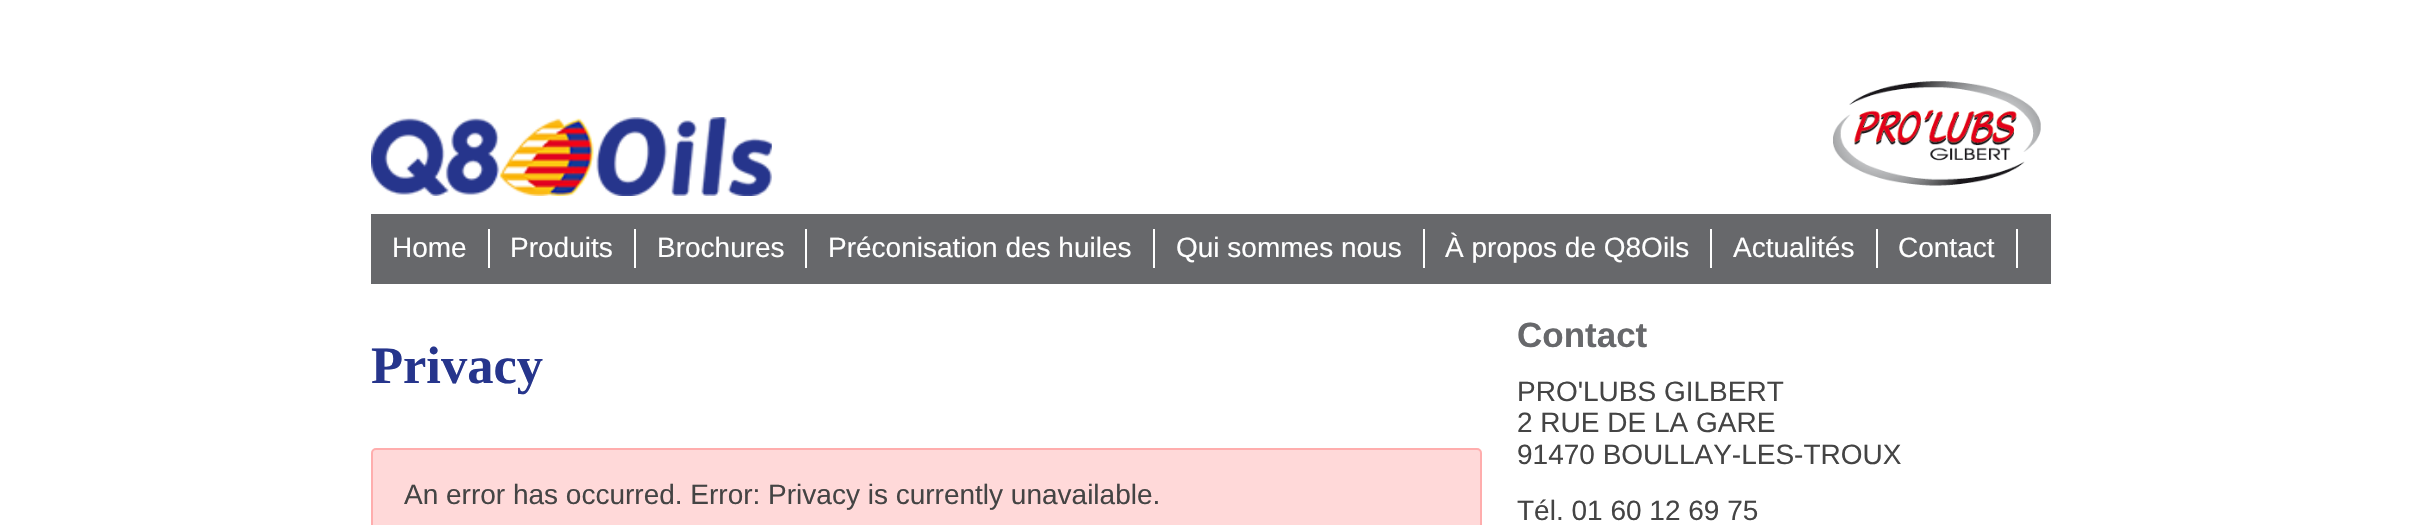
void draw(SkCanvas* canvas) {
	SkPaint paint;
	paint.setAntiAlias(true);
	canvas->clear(0xffffffff);
	canvas->drawImageRect(SkImages::DeferredFromEncodedData(SkData::MakeFromFileName("img1.png")), SkRect::MakeXYWH(371, 117, 401, 79), SkSamplingOptions());
	canvas->drawImageRect(SkImages::DeferredFromEncodedData(SkData::MakeFromFileName("img2.png")), SkRect::MakeXYWH(1833, 81, 208, 105), SkSamplingOptions());
	paint.setColor(0xff67686b);
	canvas->drawRect(SkRect::MakeXYWH(371, 214, 1680, 70), paint);
	SkFont f1(fontMgr->matchFamilyStyle("Liberation Sans", SkFontStyle::Normal()), 28);
	f1.setSubpixel(true);
	paint.setColor(0xffffffff);
	canvas->drawString("Home", 392, 257, f1, paint);
	canvas->drawRect(SkRect::MakeXYWH(488, 229, 2, 39), paint);
	canvas->drawString("Produits", 510, 257, f1, paint);
	canvas->drawRect(SkRect::MakeXYWH(634, 229, 2, 39), paint);
	canvas->drawString("Brochures", 657, 257, f1, paint);
	canvas->drawRect(SkRect::MakeXYWH(805, 229, 2, 39), paint);
	canvas->drawString("Préconisation des huiles", 828, 257, f1, paint);
	canvas->drawRect(SkRect::MakeXYWH(1153, 229, 2, 39), paint);
	canvas->drawString("Qui sommes nous", 1176, 257, f1, paint);
	canvas->drawRect(SkRect::MakeXYWH(1423, 229, 2, 39), paint);
	canvas->drawString("À propos de Q8Oils", 1445, 257, f1, paint);
	canvas->drawRect(SkRect::MakeXYWH(1710, 229, 2, 39), paint);
	canvas->drawString("Actualités", 1733, 257, f1, paint);
	canvas->drawRect(SkRect::MakeXYWH(1876, 229, 2, 39), paint);
	canvas->drawString("Contact", 1898, 257, f1, paint);
	canvas->drawRect(SkRect::MakeXYWH(2016, 229, 2, 39), paint);
	SkFont f2(fontMgr->matchFamilyStyle("Liberation Serif", SkFontStyle::Bold()), 52.5);
	f2.setSubpixel(true);
	paint.setColor(0xff26358c);
	canvas->drawString("Privacy", 371, 383, f2, paint);
	paint.setColor(0xffffd9d9);
	canvas->drawRoundRect(SkRect::MakeXYWH(371, 448, 1111, 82), 5, 5, paint);
	paint.setStroke(true);
	paint.setStrokeWidth(2);
	paint.setColor(0x33ff0000);
	canvas->drawRoundRect(SkRect::MakeXYWH(372, 449, 1109, 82), 4, 4, paint);
	paint.setStroke(false);
	paint.setColor(0xff444444);
	canvas->drawString("An error has occurred. Error: Privacy is currently unavailable.", 404, 504, f1, paint);
	SkFont f3(fontMgr->matchFamilyStyle("Liberation Sans", SkFontStyle::Bold()), 35);
	f3.setSubpixel(true);
	paint.setColor(0xff67686b);
	canvas->drawString("Contact", 1517, 347, f3, paint);
	paint.setColor(0xff444444);
	canvas->drawString("PRO'LUBS GILBERT", 1517, 401, f1, paint);
	canvas->drawString("2 RUE DE LA GARE", 1517, 432, f1, paint);
	canvas->drawString("91470 BOULLAY-LES-TROUX", 1517, 464, f1, paint);
	canvas->drawString("Tél. 01 60 12 69 75", 1517, 520, f1, paint);
}
